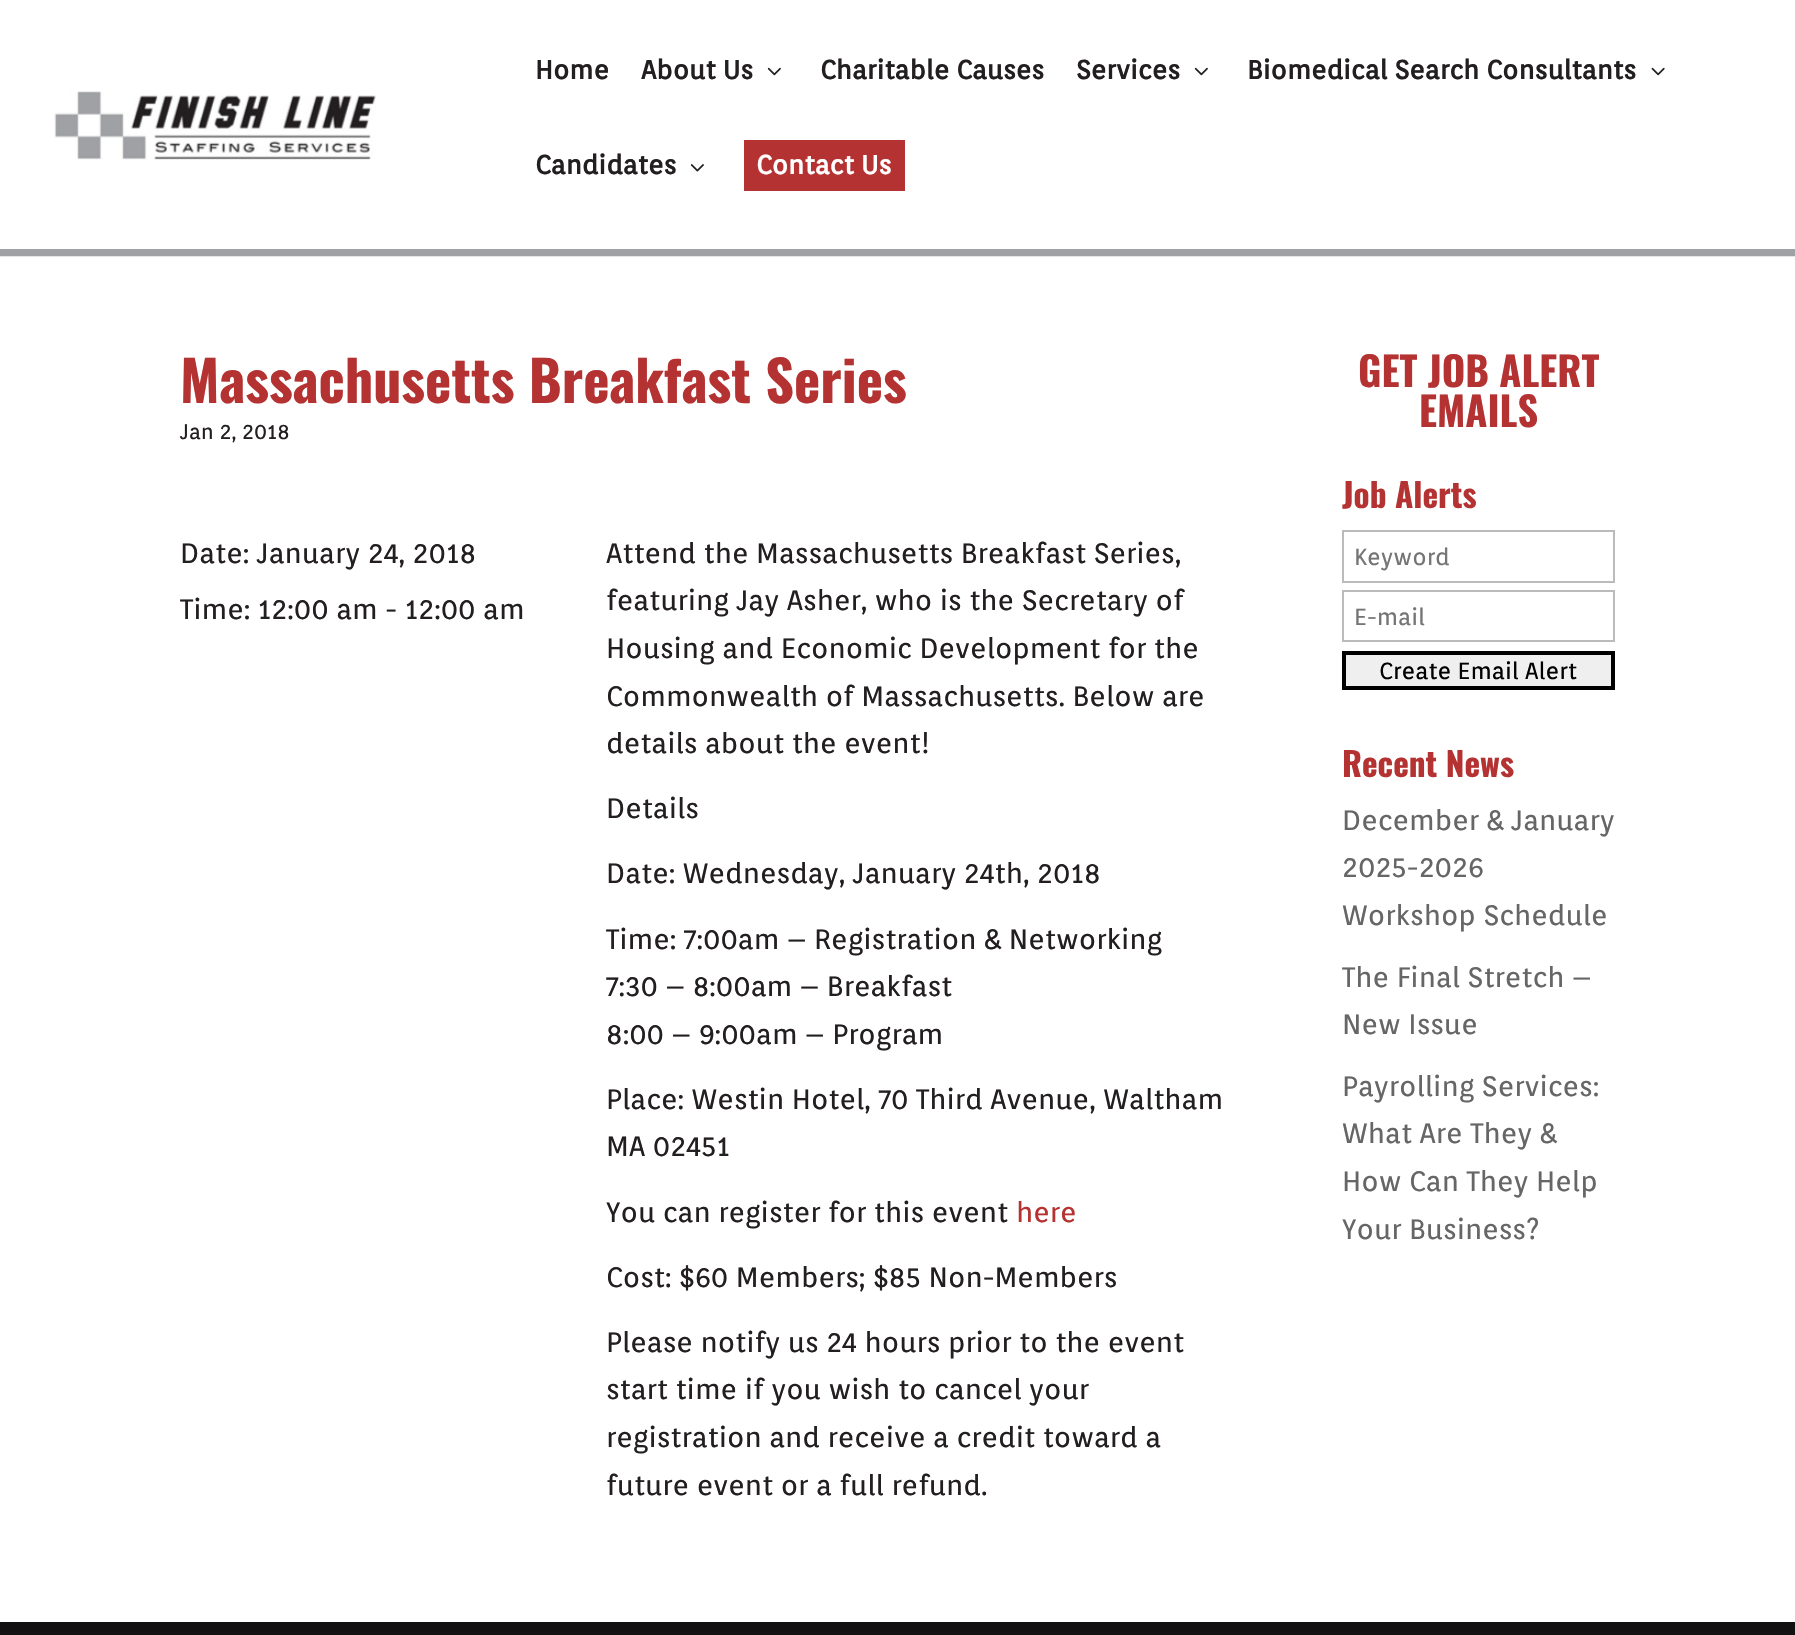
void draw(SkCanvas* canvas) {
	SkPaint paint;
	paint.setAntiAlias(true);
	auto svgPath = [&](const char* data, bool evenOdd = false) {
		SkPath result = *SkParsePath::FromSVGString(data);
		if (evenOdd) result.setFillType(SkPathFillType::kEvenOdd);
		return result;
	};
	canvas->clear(0xffffffff);
	paint.setColor(0xffe6e6e6);
	canvas->drawPath(svgPath("M0 256V257H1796V2V256Z"), paint);
	paint.setColor(0xff9fa1a4);
	canvas->drawRect(SkRect::MakeXYWH(0, 249, 1795, 7), paint);
	canvas->drawImageRect(SkImages::DeferredFromEncodedData(SkData::MakeFromFileName("img1.png")), SkRect::MakeXYWH(54, 91, 322, 69), SkSamplingOptions());
	SkFont f1(fontMgr->matchFamilyStyle("Orienta", SkFontStyle::Bold()), 26.25);
	f1.setSubpixel(true);
	paint.setColor(0xff231f20);
	canvas->drawString("Home", 535, 79, f1, paint);
	canvas->drawString("About Us", 641, 79, f1, paint);
	canvas->drawImageRect(SkImages::DeferredFromEncodedData(SkData::MakeFromFileName("img2.png")), SkRect::MakeXYWH(767, 67, 14, 9), SkSamplingOptions());
	canvas->drawString("Charitable Causes", 820, 79, f1, paint);
	canvas->drawString("Services", 1076, 79, f1, paint);
	canvas->drawImageRect(SkImages::DeferredFromEncodedData(SkData::MakeFromFileName("img2.png")), SkRect::MakeXYWH(1194, 67, 14, 9), SkSamplingOptions());
	canvas->drawString("Biomedical Search Consultants", 1247, 79, f1, paint);
	canvas->drawImageRect(SkImages::DeferredFromEncodedData(SkData::MakeFromFileName("img3.png")), SkRect::MakeXYWH(1651, 67, 14, 9), SkSamplingOptions());
	canvas->drawString("Candidates", 535, 174, f1, paint);
	canvas->drawImageRect(SkImages::DeferredFromEncodedData(SkData::MakeFromFileName("img4.png")), SkRect::MakeXYWH(690, 164, 14, 8), SkSamplingOptions());
	paint.setColor(0xffb53232);
	canvas->drawRect(SkRect::MakeXYWH(744, 140, 161, 51), paint);
	paint.setColor(0xffffffff);
	canvas->drawString("Contact Us", 756, 174, f1, paint);
	SkFont f2(fontMgr->matchFamilyStyle("Oswald", SkFontStyle::Bold()), 56);
	f2.setSubpixel(true);
	paint.setColor(0xffb53232);
	canvas->drawString("Massachusetts Breakfast Series", 180, 403, f2, paint);
	SkFont f3(fontMgr->matchFamilyStyle("Orienta", SkFontStyle::Normal()), 21);
	f3.setSubpixel(true);
	paint.setColor(0xff231f20);
	canvas->drawString("Jan 2, 2018", 180, 439, f3, paint);
	SkFont f4(fontMgr->matchFamilyStyle("Orienta", SkFontStyle::Normal()), 28);
	f4.setSubpixel(true);
	canvas->drawString("Date: January 24, 2018", 180, 563, f4, paint);
	canvas->drawString("Time: 12:00 am - 12:00 am", 180, 619, f4, paint);
	canvas->drawString("Attend the Massachusetts Breakfast Series,", 606, 563, f4, paint);
	canvas->drawString("featuring Jay Asher, who is the Secretary of", 606, 610, f4, paint);
	canvas->drawString("Housing and Economic Development for the", 606, 658, f4, paint);
	canvas->drawString("Commonwealth of Massachusetts. Below are", 606, 706, f4, paint);
	canvas->drawString("details about the event!", 606, 753, f4, paint);
	canvas->drawString("Details", 606, 818, f4, paint);
	canvas->drawString("Date: Wednesday, January 24th, 2018", 606, 883, f4, paint);
	canvas->drawString("Time: 7:00am – Registration & Networking", 606, 949, f4, paint);
	canvas->drawString("7:30 – 8:00am – Breakfast", 606, 996, f4, paint);
	canvas->drawString("8:00 – 9:00am – Program", 606, 1044, f4, paint);
	canvas->drawString("Place: Westin Hotel, 70 Third Avenue, Waltham", 606, 1109, f4, paint);
	canvas->drawString("MA 02451", 606, 1156, f4, paint);
	canvas->drawString("You can register for this event", 606, 1222, f4, paint);
	paint.setColor(0xffb53232);
	canvas->drawString("here", 1016, 1222, f4, paint);
	paint.setColor(0xff231f20);
	canvas->drawString("Cost: $60 Members; $85 Non-Members", 606, 1287, f4, paint);
	canvas->drawString("Please notify us 24 hours prior to the event", 606, 1352, f4, paint);
	canvas->drawString("start time if you wish to cancel your", 606, 1399, f4, paint);
	canvas->drawString("registration and receive a credit toward a", 606, 1447, f4, paint);
	canvas->drawString("future event or a full refund.", 606, 1495, f4, paint);
	SkFont f5(fontMgr->matchFamilyStyle("Oswald", SkFontStyle::Bold()), 40.25);
	f5.setSubpixel(true);
	paint.setColor(0xffb53232);
	canvas->drawString("GET JOB ALERT", 1358, 387, f5, paint);
	canvas->drawString("EMAILS", 1419, 427, f5, paint);
	SkFont f6(fontMgr->matchFamilyStyle("Oswald", SkFontStyle::Bold()), 33.25);
	f6.setSubpixel(true);
	canvas->drawString("Job Alerts", 1342, 508, f6, paint);
	paint.setStroke(true);
	paint.setStrokeWidth(2);
	paint.setColor(0xffbbbbbb);
	canvas->drawRect(SkRect::MakeXYWH(1343, 531, 271, 51), paint);
	SkFont f7(fontMgr->matchFamilyStyle("Orienta", SkFontStyle::Normal()), 23.25);
	f7.setSubpixel(true);
	paint.setStroke(false);
	paint.setColor(0xff757575);
	canvas->drawString("Keyword", 1354, 565, f7, paint);
	paint.setStroke(true);
	paint.setColor(0xffbbbbbb);
	canvas->drawRect(SkRect::MakeXYWH(1343, 591, 271, 50), paint);
	paint.setStroke(false);
	paint.setColor(0xff757575);
	canvas->drawString("E-mail", 1354, 625, f7, paint);
	paint.setColor(0xffefefef);
	canvas->drawRect(SkRect::MakeXYWH(1344, 653, 269, 35), paint);
	paint.setStroke(true);
	paint.setStrokeWidth(4);
	paint.setColor(0xff000000);
	canvas->drawRect(SkRect::MakeXYWH(1344, 653, 269, 35), paint);
	paint.setStroke(false);
	canvas->drawString("Create Email Alert", 1379, 679, f7, paint);
	paint.setColor(0xffb53232);
	canvas->drawString("Recent News", 1342, 777, f6, paint);
	paint.setColor(0xff666666);
	canvas->drawString("December & January", 1342, 830, f4, paint);
	canvas->drawString("2025-2026", 1342, 877, f4, paint);
	canvas->drawString("Workshop Schedule", 1342, 925, f4, paint);
	canvas->drawString("The Final Stretch –", 1342, 987, f4, paint);
	canvas->drawString("New Issue", 1342, 1034, f4, paint);
	canvas->drawString("Payrolling Services:", 1342, 1096, f4, paint);
	canvas->drawString("What Are They &", 1342, 1143, f4, paint);
	canvas->drawString("How Can They Help", 1342, 1191, f4, paint);
	canvas->drawString("Your Business?", 1342, 1239, f4, paint);
	paint.setColor(0xff131011);
	canvas->drawRect(SkRect::MakeXYWH(0, 1622, 1795, 13), paint);
}
